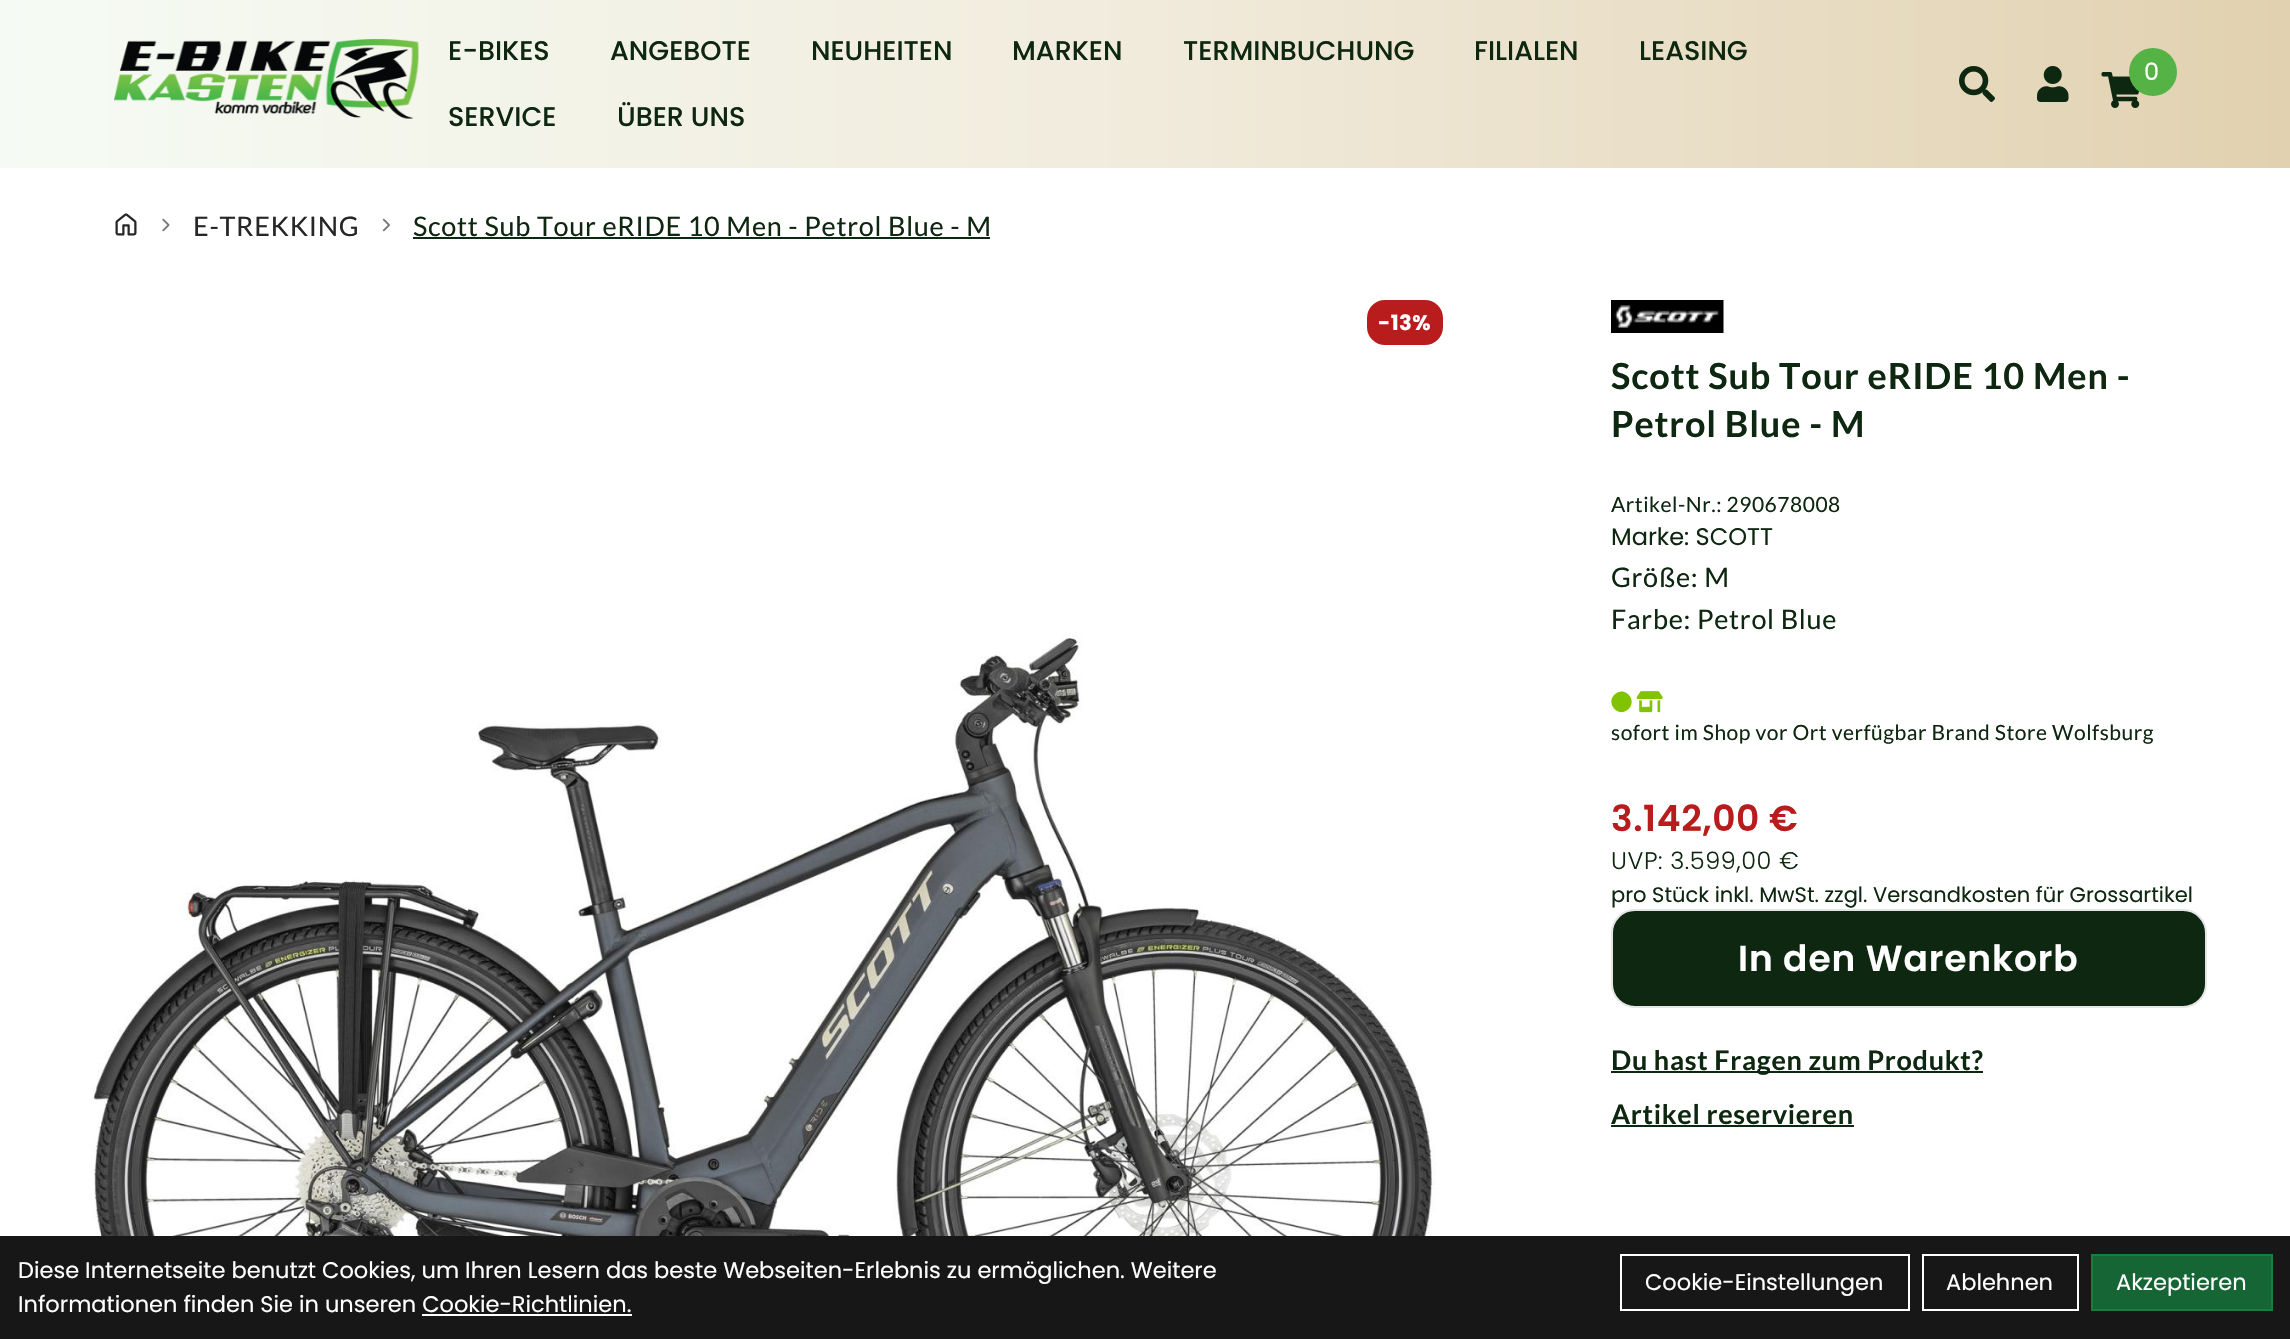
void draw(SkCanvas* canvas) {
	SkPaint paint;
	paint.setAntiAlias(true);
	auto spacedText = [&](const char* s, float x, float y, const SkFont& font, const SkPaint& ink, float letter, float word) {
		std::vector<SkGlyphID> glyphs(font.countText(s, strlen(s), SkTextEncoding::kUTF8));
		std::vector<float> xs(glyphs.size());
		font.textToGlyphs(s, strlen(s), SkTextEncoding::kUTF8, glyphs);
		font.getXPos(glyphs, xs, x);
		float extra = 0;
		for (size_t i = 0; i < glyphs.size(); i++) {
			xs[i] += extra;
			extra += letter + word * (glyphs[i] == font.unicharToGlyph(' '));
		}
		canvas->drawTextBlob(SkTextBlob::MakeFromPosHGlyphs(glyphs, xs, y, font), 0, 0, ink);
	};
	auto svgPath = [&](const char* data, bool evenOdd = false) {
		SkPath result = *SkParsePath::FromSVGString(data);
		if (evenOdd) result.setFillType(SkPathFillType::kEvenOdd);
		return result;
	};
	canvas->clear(0xffffffff);
	{
		const SkColor colors[] = {0xfff5fbf4, 0xfff1ebdc, 0xffe1d1b0};
		const float stops[] = {0, 0.5, 1};
		const SkPoint ends[] = {{0, 84}, {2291, 84}};
		paint.setShader(SkGradientShader::MakeLinear(ends, colors, stops, 3, SkTileMode::kClamp));
		paint.setAlpha(255);
	}
	canvas->drawRect(SkRect::MakeXYWH(0, 0, 2290, 168), paint);
	canvas->drawImageRect(SkImages::DeferredFromEncodedData(SkData::MakeFromFileName("img1.png")), SkRect::MakeXYWH(114, 39, 305, 80), SkSamplingOptions());
	SkFont f1(fontMgr->matchFamilyStyle("Poppins", SkFontStyle(500, SkFontStyle::kNormal_Width, SkFontStyle::kUpright_Slant)), 27);
	f1.setSubpixel(true);
	paint.setShader(nullptr);
	paint.setColor(0xff0e2710);
	canvas->drawString("E-BIKES", 448, 60, f1, paint);
	canvas->drawString("ANGEBOTE", 610, 60, f1, paint);
	canvas->drawString("NEUHEITEN", 811, 60, f1, paint);
	canvas->drawString("MARKEN", 1012, 60, f1, paint);
	canvas->drawString("TERMINBUCHUNG", 1183, 60, f1, paint);
	canvas->drawString("FILIALEN", 1474, 60, f1, paint);
	canvas->drawString("LEASING", 1639, 60, f1, paint);
	canvas->drawString("SERVICE", 448, 126, f1, paint);
	canvas->drawString("ÜBER UNS", 617, 126, f1, paint);
	canvas->drawImageRect(SkImages::DeferredFromEncodedData(SkData::MakeFromFileName("img2.png")), SkRect::MakeXYWH(1959, 66, 36, 36), SkSamplingOptions());
	canvas->drawImageRect(SkImages::DeferredFromEncodedData(SkData::MakeFromFileName("img3.png")), SkRect::MakeXYWH(2037, 66, 32, 36), SkSamplingOptions());
	canvas->drawImageRect(SkImages::DeferredFromEncodedData(SkData::MakeFromFileName("img4.png")), SkRect::MakeXYWH(2101, 72, 39, 36), SkSamplingOptions());
	paint.setColor(0xff55b346);
	canvas->drawCircle(2153, 72, 24, paint);
	SkFont f2(fontMgr->matchFamilyStyle("Poppins", SkFontStyle::Normal()), 24);
	f2.setSubpixel(true);
	paint.setColor(0xffffffff);
	canvas->drawString("0", 2144, 80, f2, paint);
	canvas->drawImageRect(SkImages::DeferredFromEncodedData(SkData::MakeFromFileName("img5.png")), SkRect::MakeXYWH(115, 213, 22, 23), SkSamplingOptions());
	canvas->drawImageRect(SkImages::DeferredFromEncodedData(SkData::MakeFromFileName("img6.png")), SkRect::MakeXYWH(162, 218, 8, 14), SkSamplingOptions());
	SkFont f3(fontMgr->matchFamilyStyle("Lato", SkFontStyle::Normal()), 27);
	f3.setSubpixel(true);
	paint.setColor(0xff262626);
	spacedText("E-TREKKING", 193, 236, f3, paint, 0.7, 0);
	canvas->drawImageRect(SkImages::DeferredFromEncodedData(SkData::MakeFromFileName("img7.png")), SkRect::MakeXYWH(382, 218, 8, 14), SkSamplingOptions());
	paint.setColor(0xff0e2710);
	spacedText("Scott Sub Tour eRIDE 10 Men - Petrol Blue - M", 413, 236, f3, paint, 0.7, 0);
	canvas->drawRect(SkRect::MakeXYWH(413, 237, 577, 2), paint);
	paint.setColor(0xffb91c1c);
	canvas->drawRoundRect(SkRect::MakeXYWH(1367, 300, 76, 45), 18, 18, paint);
	SkFont f4(fontMgr->matchFamilyStyle("Poppins", SkFontStyle::Bold()), 21);
	f4.setSubpixel(true);
	paint.setColor(0xffffffff);
	spacedText("-13%", 1378, 330, f4, paint, 0.52, 0);
	canvas->drawImageRect(SkImages::DeferredFromEncodedData(SkData::MakeFromFileName("img8.png")), SkRect::MakeXYWH(91, 635, 1345, 601), SkSamplingOptions());
	canvas->drawImageRect(SkImages::DeferredFromEncodedData(SkData::MakeFromFileName("img9.png")), SkRect::MakeXYWH(1611, 300, 113, 33), SkSamplingOptions());
	SkFont f5(fontMgr->matchFamilyStyle("Lato", SkFontStyle::Bold()), 36);
	f5.setSubpixel(true);
	paint.setColor(0xff0e2710);
	spacedText("Scott Sub Tour eRIDE 10 Men -", 1611, 389, f5, paint, 0.9, 0);
	spacedText("Petrol Blue - M", 1611, 437, f5, paint, 0.9, 0);
	SkFont f6(fontMgr->matchFamilyStyle("Lato", SkFontStyle::Normal()), 21);
	f6.setSubpixel(true);
	spacedText("Artikel-Nr.: 290678008", 1611, 512, f6, paint, 0.52, 0);
	canvas->drawString("Marke: SCOTT", 1611, 545, f2, paint);
	spacedText("Größe: M", 1611, 587, f3, paint, 0.7, 0);
	spacedText("Farbe: Petrol Blue", 1611, 629, f3, paint, 0.7, 0);
	paint.setColor(0xff82c300);
	canvas->drawPath(svgPath("M1614.5 694.5C1624 685 1638 699.5 1628.5 709C1619 718.5 1605 704 1614.5 694.5Z"), paint);
	canvas->drawImageRect(SkImages::DeferredFromEncodedData(SkData::MakeFromFileName("img10.png")), SkRect::MakeXYWH(1636, 691, 27, 22), SkSamplingOptions());
	paint.setColor(0xff0e2710);
	spacedText("sofort im Shop vor Ort verfügbar Brand Store Wolfsburg", 1611, 740, f6, paint, 0.52, 0);
	SkFont f7(fontMgr->matchFamilyStyle("Poppins", SkFontStyle(600, SkFontStyle::kNormal_Width, SkFontStyle::kUpright_Slant)), 36);
	f7.setSubpixel(true);
	paint.setColor(0xffb91c1c);
	spacedText("3.142,00 €", 1611, 831, f7, paint, 0.6, 0);
	SkFont f8(fontMgr->matchFamilyStyle("Poppins", SkFontStyle(300, SkFontStyle::kNormal_Width, SkFontStyle::kUpright_Slant)), 24);
	f8.setSubpixel(true);
	paint.setColor(0xff0e2710);
	spacedText("UVP: 3.599,00 €", 1611, 869, f8, paint, 0.6, 0);
	SkFont f9(fontMgr->matchFamilyStyle("Poppins", SkFontStyle::Normal()), 21);
	f9.setSubpixel(true);
	canvas->drawString("pro Stück inkl. MwSt. zzgl. Versandkosten für Grossartikel", 1611, 902, f9, paint);
	canvas->drawRoundRect(SkRect::MakeXYWH(1612, 910, 594, 97), 23, 23, paint);
	paint.setStroke(true);
	paint.setStrokeWidth(2);
	paint.setColor(0xffe5e5e5);
	canvas->drawRoundRect(SkRect::MakeXYWH(1612, 910, 594, 97), 23, 23, paint);
	paint.setStroke(false);
	paint.setColor(0xffffffff);
	spacedText("In den Warenkorb", 1738, 971, f7, paint, 0.9, 0);
	paint.setColor(0xff0e2710);
	canvas->drawRect(SkRect::MakeXYWH(1611, 1071, 372, 2), paint);
	SkFont f10(fontMgr->matchFamilyStyle("Lato", SkFontStyle::Bold()), 27);
	f10.setSubpixel(true);
	spacedText("Du hast Fragen zum Produkt?", 1611, 1070, f10, paint, 0.7, 0);
	spacedText("Artikel reservieren", 1611, 1124, f10, paint, 0.7, 0);
	canvas->drawRect(SkRect::MakeXYWH(1611, 1125, 243, 2), paint);
	paint.setColor(0xff171717);
	canvas->drawRect(SkRect::MakeXYWH(0, 1236, 2290, 103), paint);
	SkFont f11(fontMgr->matchFamilyStyle("Poppins", SkFontStyle::Normal()), 22.5);
	f11.setSubpixel(true);
	paint.setColor(0xffffffff);
	canvas->drawString("Diese Internetseite benutzt Cookies, um Ihren Lesern das beste Webseiten-Erlebnis zu ermöglichen. Weitere", 18, 1278, f11, paint);
	canvas->drawString("Informationen finden Sie in unseren Cookie-Richtlinien.", 18, 1312, f11, paint);
	canvas->drawRect(SkRect::MakeXYWH(422, 1314, 210, 2), paint);
	paint.setStroke(true);
	canvas->drawRect(SkRect::MakeXYWH(1621, 1255, 288, 55), paint);
	paint.setStroke(false);
	canvas->drawString("Cookie-Einstellungen", 1645, 1290, f11, paint);
	paint.setStroke(true);
	canvas->drawRect(SkRect::MakeXYWH(1923, 1255, 155, 55), paint);
	paint.setStroke(false);
	canvas->drawString("Ablehnen", 1946, 1290, f11, paint);
	paint.setColor(0xff166534);
	canvas->drawRect(SkRect::MakeXYWH(2092, 1255, 180, 55), paint);
	paint.setStroke(true);
	paint.setColor(0xff15803d);
	canvas->drawRect(SkRect::MakeXYWH(2092, 1255, 180, 55), paint);
	paint.setStroke(false);
	paint.setColor(0xffffffff);
	canvas->drawString("Akzeptieren", 2116, 1290, f11, paint);
}
